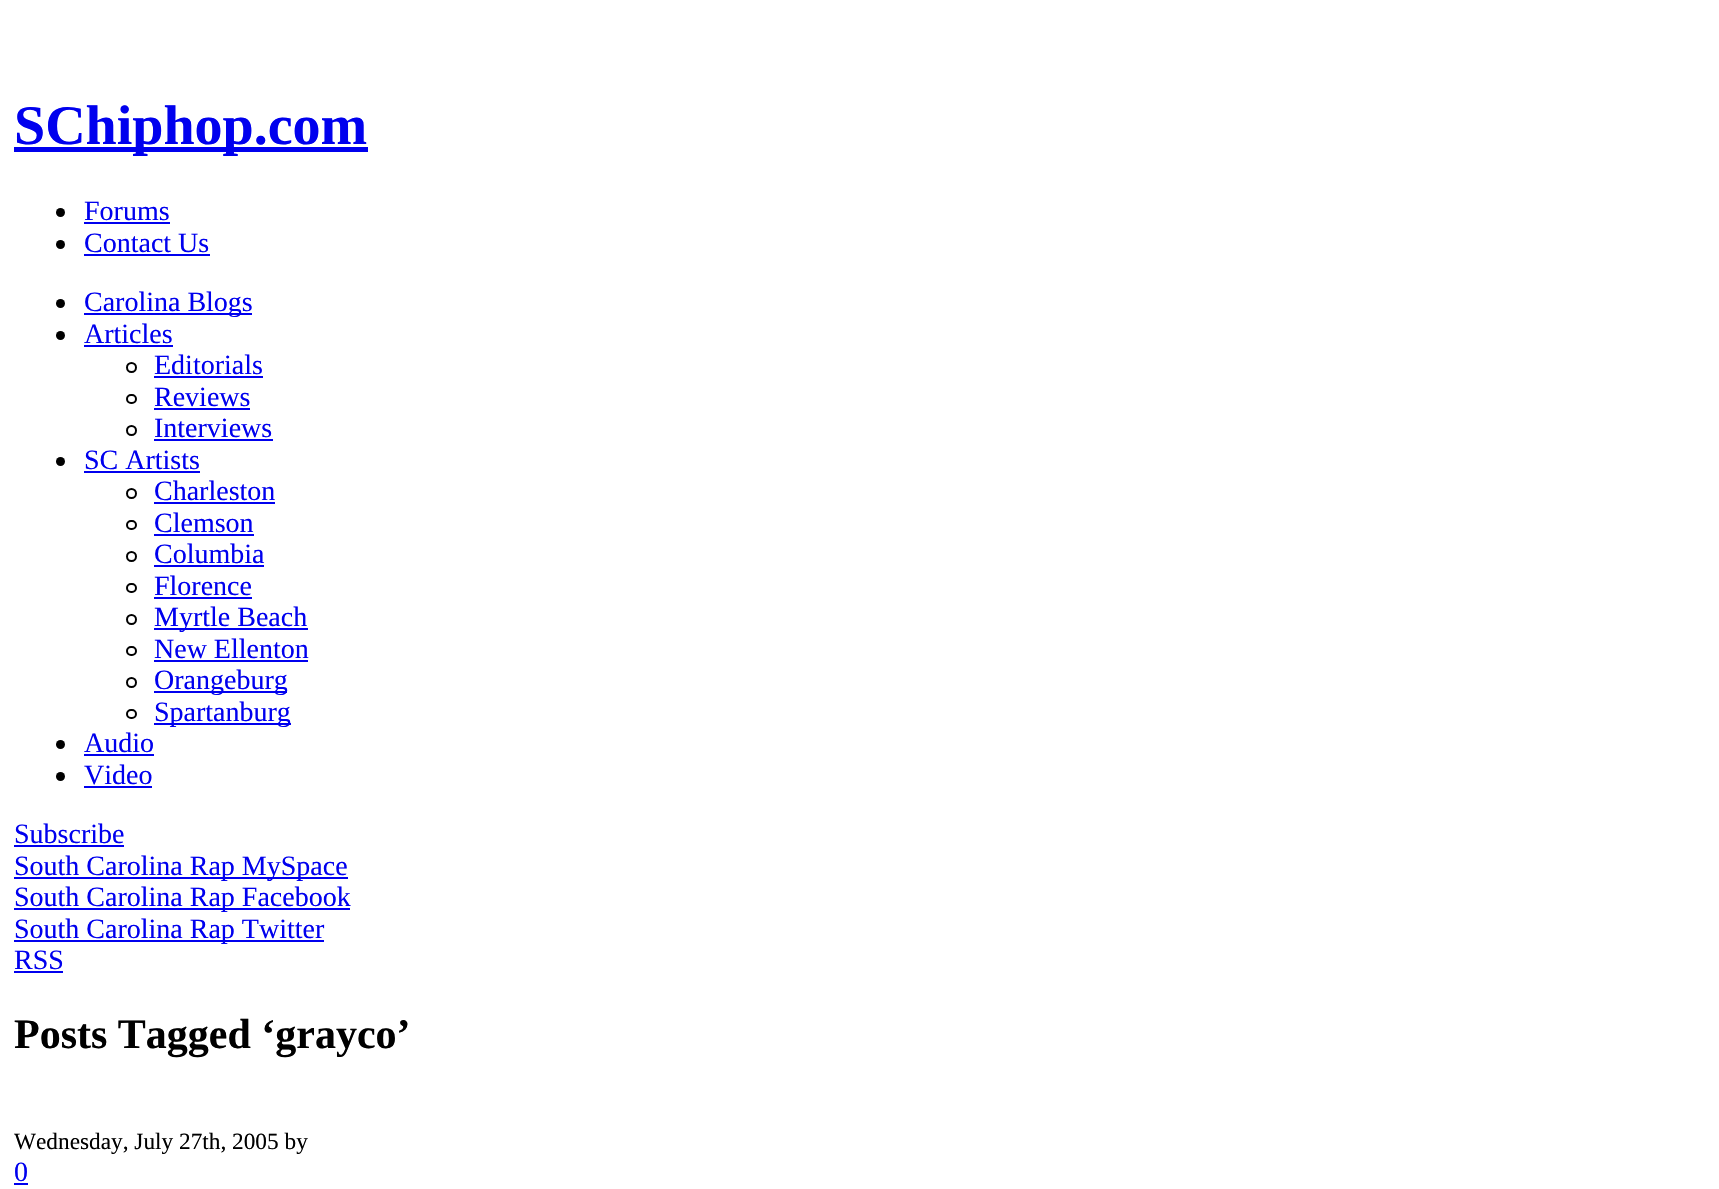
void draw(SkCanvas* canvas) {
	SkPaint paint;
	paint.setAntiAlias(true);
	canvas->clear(0xffffffff);
	paint.setColor(0xff0000ee);
	canvas->drawRect(SkRect::MakeXYWH(14, 147, 354, 5), paint);
	SkFont f1(fontMgr->matchFamilyStyle("Liberation Serif", SkFontStyle::Bold()), 56);
	f1.setSubpixel(true);
	canvas->drawString("SChiphop.com", 14, 144, f1, paint);
	paint.setColor(0xff000000);
	canvas->drawCircle(60.5, 212.5, 4.5, paint);
	SkFont f2(fontMgr->matchFamilyStyle("Liberation Serif", SkFontStyle::Normal()), 28);
	f2.setSubpixel(true);
	paint.setColor(0xff0000ee);
	canvas->drawString("Forums", 84, 220, f2, paint);
	canvas->drawRect(SkRect::MakeXYWH(84, 222, 86, 2), paint);
	paint.setColor(0xff000000);
	canvas->drawCircle(60.5, 244.5, 4.5, paint);
	paint.setColor(0xff0000ee);
	canvas->drawString("Contact Us", 84, 252, f2, paint);
	canvas->drawRect(SkRect::MakeXYWH(84, 254, 126, 2), paint);
	paint.setColor(0xff000000);
	canvas->drawCircle(60.5, 303.5, 4.5, paint);
	paint.setColor(0xff0000ee);
	canvas->drawRect(SkRect::MakeXYWH(84, 313, 168, 2), paint);
	canvas->drawString("Carolina Blogs", 84, 311, f2, paint);
	paint.setColor(0xff000000);
	canvas->drawCircle(60.5, 335.5, 4.5, paint);
	paint.setColor(0xff0000ee);
	canvas->drawString("Articles", 84, 343, f2, paint);
	canvas->drawRect(SkRect::MakeXYWH(84, 345, 89, 2), paint);
	paint.setStroke(true);
	paint.setStrokeWidth(2);
	paint.setColor(0xff000000);
	canvas->drawCircle(131.5, 367.5, 4.5, paint);
	paint.setStroke(false);
	paint.setColor(0xff0000ee);
	canvas->drawString("Editorials", 154, 374, f2, paint);
	canvas->drawRect(SkRect::MakeXYWH(154, 376, 109, 2), paint);
	paint.setStroke(true);
	paint.setColor(0xff000000);
	canvas->drawRoundRect(SkRect::MakeXYWH(127, 395, 9, 8), 4, 4, paint);
	paint.setStroke(false);
	paint.setColor(0xff0000ee);
	canvas->drawString("Reviews", 154, 406, f2, paint);
	canvas->drawRect(SkRect::MakeXYWH(154, 408, 96, 2), paint);
	paint.setStroke(true);
	paint.setColor(0xff000000);
	canvas->drawCircle(131.5, 430.5, 4.5, paint);
	paint.setStroke(false);
	paint.setColor(0xff0000ee);
	canvas->drawString("Interviews", 154, 437, f2, paint);
	canvas->drawRect(SkRect::MakeXYWH(154, 439, 119, 2), paint);
	paint.setColor(0xff000000);
	canvas->drawCircle(60.5, 461.5, 4.5, paint);
	paint.setColor(0xff0000ee);
	canvas->drawString("SC Artists", 84, 469, f2, paint);
	canvas->drawRect(SkRect::MakeXYWH(84, 471, 116, 2), paint);
	paint.setStroke(true);
	paint.setColor(0xff000000);
	canvas->drawCircle(131.5, 493.5, 4.5, paint);
	paint.setStroke(false);
	paint.setColor(0xff0000ee);
	canvas->drawString("Charleston", 154, 500, f2, paint);
	canvas->drawRect(SkRect::MakeXYWH(154, 502, 121, 2), paint);
	paint.setStroke(true);
	paint.setColor(0xff000000);
	canvas->drawRoundRect(SkRect::MakeXYWH(127, 521, 9, 8), 4, 4, paint);
	paint.setStroke(false);
	paint.setColor(0xff0000ee);
	canvas->drawString("Clemson", 154, 532, f2, paint);
	canvas->drawRect(SkRect::MakeXYWH(154, 534, 100, 2), paint);
	paint.setStroke(true);
	paint.setColor(0xff000000);
	canvas->drawCircle(131.5, 556.5, 4.5, paint);
	paint.setStroke(false);
	paint.setColor(0xff0000ee);
	canvas->drawString("Columbia", 154, 563, f2, paint);
	canvas->drawRect(SkRect::MakeXYWH(154, 565, 110, 2), paint);
	paint.setStroke(true);
	paint.setColor(0xff000000);
	canvas->drawRoundRect(SkRect::MakeXYWH(127, 584, 9, 8), 4, 4, paint);
	paint.setStroke(false);
	paint.setColor(0xff0000ee);
	canvas->drawString("Florence", 154, 595, f2, paint);
	canvas->drawRect(SkRect::MakeXYWH(154, 597, 98, 2), paint);
	paint.setStroke(true);
	paint.setColor(0xff000000);
	canvas->drawCircle(131.5, 619.5, 4.5, paint);
	paint.setStroke(false);
	paint.setColor(0xff0000ee);
	canvas->drawRect(SkRect::MakeXYWH(154, 628, 154, 2), paint);
	canvas->drawString("Myrtle Beach", 154, 626, f2, paint);
	paint.setStroke(true);
	paint.setColor(0xff000000);
	canvas->drawRoundRect(SkRect::MakeXYWH(127, 647, 9, 8), 4, 4, paint);
	paint.setStroke(false);
	paint.setColor(0xff0000ee);
	canvas->drawString("New Ellenton", 154, 658, f2, paint);
	canvas->drawRect(SkRect::MakeXYWH(154, 660, 154, 2), paint);
	paint.setStroke(true);
	paint.setColor(0xff000000);
	canvas->drawCircle(131.5, 682.5, 4.5, paint);
	paint.setStroke(false);
	paint.setColor(0xff0000ee);
	canvas->drawRect(SkRect::MakeXYWH(154, 691, 133, 2), paint);
	canvas->drawString("Orangeburg", 154, 689, f2, paint);
	paint.setStroke(true);
	paint.setColor(0xff000000);
	canvas->drawRoundRect(SkRect::MakeXYWH(127, 710, 9, 8), 4, 4, paint);
	paint.setStroke(false);
	paint.setColor(0xff0000ee);
	canvas->drawRect(SkRect::MakeXYWH(154, 723, 137, 2), paint);
	canvas->drawString("Spartanburg", 154, 721, f2, paint);
	paint.setColor(0xff000000);
	canvas->drawCircle(60.5, 744.5, 4.5, paint);
	paint.setColor(0xff0000ee);
	canvas->drawString("Audio", 84, 752, f2, paint);
	canvas->drawRect(SkRect::MakeXYWH(84, 754, 70, 2), paint);
	paint.setColor(0xff000000);
	canvas->drawCircle(60.5, 776.5, 4.5, paint);
	paint.setColor(0xff0000ee);
	canvas->drawString("Video", 84, 784, f2, paint);
	canvas->drawRect(SkRect::MakeXYWH(84, 786, 68, 2), paint);
	canvas->drawString("Subscribe", 14, 843, f2, paint);
	canvas->drawRect(SkRect::MakeXYWH(14, 845, 110, 2), paint);
	canvas->drawRect(SkRect::MakeXYWH(14, 877, 334, 2), paint);
	canvas->drawString("South Carolina Rap MySpace", 14, 875, f2, paint);
	canvas->drawRect(SkRect::MakeXYWH(14, 908, 336, 2), paint);
	canvas->drawString("South Carolina Rap Facebook", 14, 906, f2, paint);
	canvas->drawRect(SkRect::MakeXYWH(14, 940, 310, 2), paint);
	canvas->drawString("South Carolina Rap Twitter", 14, 938, f2, paint);
	canvas->drawString("RSS", 14, 969, f2, paint);
	canvas->drawRect(SkRect::MakeXYWH(14, 971, 49, 2), paint);
	SkFont f3(fontMgr->matchFamilyStyle("Liberation Serif", SkFontStyle::Bold()), 42);
	f3.setSubpixel(true);
	paint.setColor(0xff000000);
	canvas->drawString("Posts Tagged ‘grayco’", 14, 1048, f3, paint);
	SkFont f4(fontMgr->matchFamilyStyle("Liberation Serif", SkFontStyle::Normal()), 23.3);
	f4.setSubpixel(true);
	canvas->drawString("Wednesday, July 27th, 2005 by", 14, 1149, f4, paint);
	paint.setColor(0xff0000ee);
	canvas->drawString("0", 14, 1181, f2, paint);
	canvas->drawRect(SkRect::MakeXYWH(14, 1183, 14, 2), paint);
}
